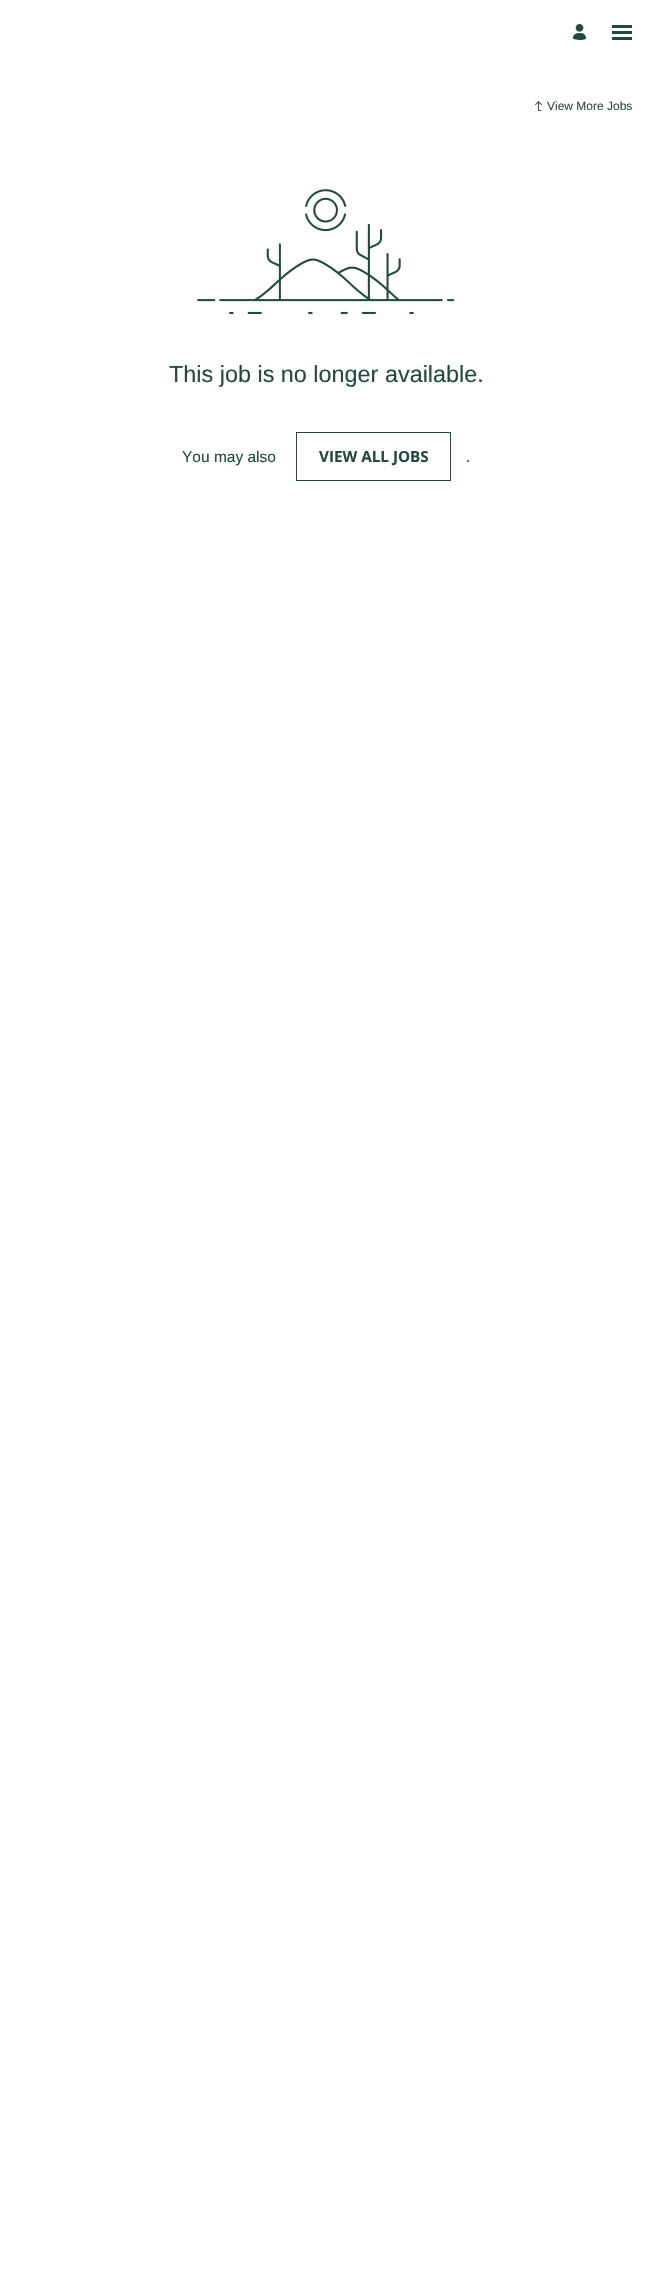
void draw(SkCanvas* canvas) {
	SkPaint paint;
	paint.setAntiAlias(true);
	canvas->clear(0xffffffff);
	canvas->drawImageRect(SkImages::DeferredFromEncodedData(SkData::MakeFromFileName("img1.png")), SkRect::MakeXYWH(573, 24, 13, 16), SkSamplingOptions());
	paint.setColor(0xff234a3f);
	canvas->drawRect(SkRect::MakeXYWH(612, 25, 20, 3), paint);
	canvas->drawRect(SkRect::MakeXYWH(612, 31, 20, 3), paint);
	canvas->drawRect(SkRect::MakeXYWH(612, 37, 20, 3), paint);
	canvas->drawImageRect(SkImages::DeferredFromEncodedData(SkData::MakeFromFileName("img2.png")), SkRect::MakeXYWH(535, 101, 7, 10), SkSamplingOptions());
	SkFont f1(fontMgr->matchFamilyStyle("Liberation Sans", SkFontStyle::Normal()), 12);
	f1.setSubpixel(true);
	paint.setColor(0xff354b41);
	canvas->drawString("View More Jobs", 547, 110, f1, paint);
	canvas->drawImageRect(SkImages::DeferredFromEncodedData(SkData::MakeFromFileName("img3.png")), SkRect::MakeXYWH(197, 189, 258, 125), SkSamplingOptions());
	SkFont f2(fontMgr->matchFamilyStyle("Liberation Sans", SkFontStyle::Normal()), 23.4);
	f2.setSubpixel(true);
	paint.setColor(0xff234a3f);
	canvas->drawString("This job is no longer available.", 169, 382, f2, paint);
	SkFont f3(fontMgr->matchFamilyStyle("Liberation Sans", SkFontStyle::Normal()), 15.5);
	f3.setSubpixel(true);
	canvas->drawString("You may also", 182, 462, f3, paint);
	paint.setStroke(true);
	paint.setStrokeWidth(1);
	canvas->drawRect(SkRect::MakeXYWH(296.5, 432.5, 154, 48), paint);
	SkFont f4(fontMgr->matchFamilyStyle("Open Sans", SkFontStyle::Bold()), 15.25);
	f4.setSubpixel(true);
	paint.setStroke(false);
	canvas->drawString("VIEW ALL JOBS", 319, 462, f4, paint);
	canvas->drawString(".", 466, 462, f3, paint);
}
